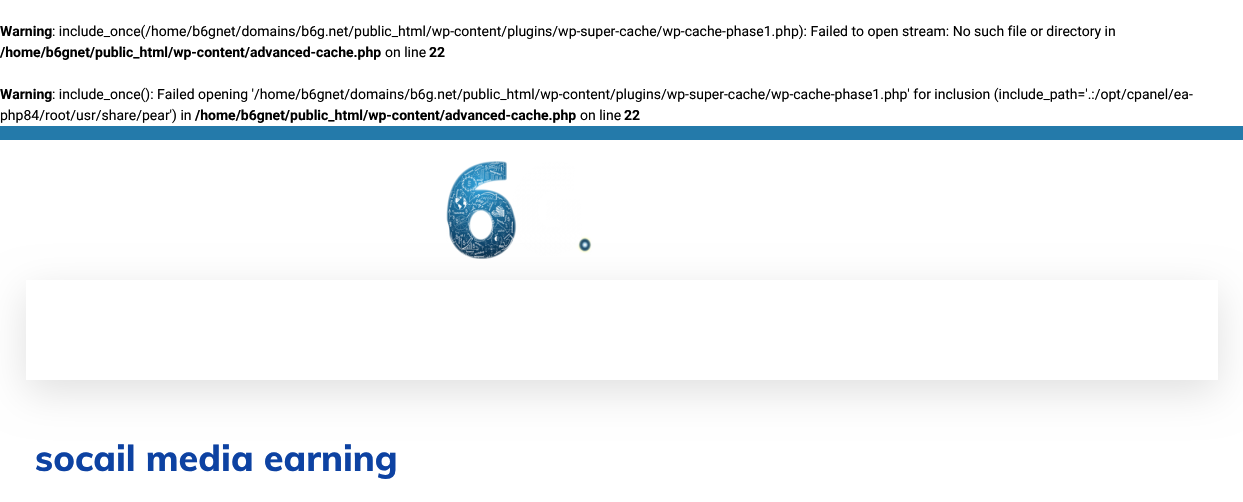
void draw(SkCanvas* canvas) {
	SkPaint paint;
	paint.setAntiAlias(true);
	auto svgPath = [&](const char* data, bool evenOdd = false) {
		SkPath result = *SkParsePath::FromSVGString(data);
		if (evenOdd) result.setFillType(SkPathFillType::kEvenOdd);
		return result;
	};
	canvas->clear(0xffffffff);
	SkFont f1(fontMgr->matchFamilyStyle("Roboto", SkFontStyle::Bold()), 14);
	f1.setSubpixel(true);
	paint.setColor(0xff000000);
	canvas->drawString("Warning", 0, 36, f1, paint);
	SkFont f2(fontMgr->matchFamilyStyle("Roboto", SkFontStyle::Normal()), 14);
	f2.setSubpixel(true);
	canvas->drawString(": include_once(/home/b6gnet/domains/b6g.net/public_html/wp-content/plugins/wp-super-cache/wp-cache-phase1.php): Failed to open stream: No such file or directory in", 52, 36, f2, paint);
	canvas->drawString("/home/b6gnet/public_html/wp-content/advanced-cache.php", 0, 57, f1, paint);
	canvas->drawString("on line", 385, 57, f2, paint);
	canvas->drawString("22", 429, 57, f1, paint);
	canvas->drawString("Warning", 0, 99, f1, paint);
	canvas->drawString(": include_once(): Failed opening '/home/b6gnet/domains/b6g.net/public_html/wp-content/plugins/wp-super-cache/wp-cache-phase1.php' for inclusion (include_path='.:/opt/cpanel/ea-", 52, 99, f2, paint);
	canvas->drawString("php84/root/usr/share/pear') in", 0, 120, f2, paint);
	canvas->drawString("/home/b6gnet/public_html/wp-content/advanced-cache.php", 195, 120, f1, paint);
	canvas->drawString("on line", 580, 120, f2, paint);
	canvas->drawString("22", 624, 120, f1, paint);
	paint.setColor(0xff247aaa);
	canvas->drawRect(SkRect::MakeXYWH(0, 126, 1243, 14), paint);
	canvas->drawImageRect(SkImages::DeferredFromEncodedData(SkData::MakeFromFileName("img1.png")), SkRect::MakeXYWH(446, 161, 146, 98), SkSamplingOptions());
	canvas->save();
	canvas->clipPath(svgPath("M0 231H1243V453H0ZM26 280H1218V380H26Z", true), true);
	paint.setColor(0x1f000000);
	paint.setMaskFilter(SkMaskFilter::MakeBlur(kNormal_SkBlurStyle, 20));
	canvas->drawRect(SkRect::MakeXYWH(26, 292, 1192, 100), paint);
	paint.setMaskFilter(nullptr);
	canvas->restore();
	SkFont f3(fontMgr->matchFamilyStyle("Muli", SkFontStyle(800, SkFontStyle::kNormal_Width, SkFontStyle::kUpright_Slant)), 36);
	f3.setSubpixel(true);
	paint.setColor(0xff0d42a2);
	canvas->drawString("socail media earning", 35, 471, f3, paint);
}
